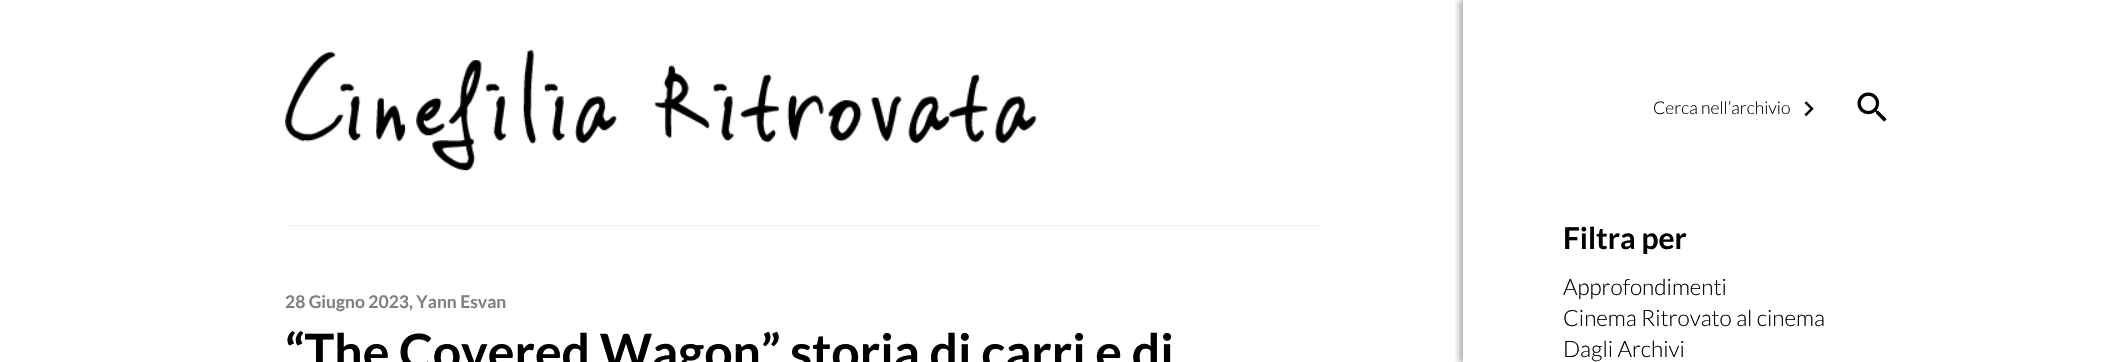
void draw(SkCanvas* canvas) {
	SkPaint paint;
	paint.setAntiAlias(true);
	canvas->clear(0xffffffff);
	canvas->drawImageRect(SkImages::DeferredFromEncodedData(SkData::MakeFromFileName("img1.png")), SkRect::MakeXYWH(285, 50, 752, 121), SkSamplingOptions());
	paint.setColor(0xfff2f2f2);
	canvas->drawRect(SkRect::MakeXYWH(285, 225, 1038, 1), paint);
	SkFont f1(fontMgr->matchFamilyStyle("Lato", SkFontStyle::Bold()), 17.5);
	f1.setSubpixel(true);
	paint.setColor(0xff808080);
	canvas->drawString("28 Giugno 2023, Yann Esvan", 285, 308, f1, paint);
	SkFont f2(fontMgr->matchFamilyStyle("Lato", SkFontStyle::Bold()), 50);
	f2.setSubpixel(true);
	paint.setColor(0xff000000);
	canvas->drawString("“The Covered Wagon” storia di carri e di", 285, 370, f2, paint);
	canvas->save();
	canvas->clipRect(SkRect::MakeXYWH(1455, 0, 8, 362));
	paint.setColor(0x4d000000);
	paint.setMaskFilter(SkMaskFilter::MakeBlur(kNormal_SkBlurStyle, 3));
	canvas->drawRect(SkRect::MakeXYWH(1459, 0, 472, 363), paint);
	paint.setMaskFilter(nullptr);
	canvas->restore();
	SkFont f3(fontMgr->matchFamilyStyle("Lato", SkFontStyle(300, SkFontStyle::kNormal_Width, SkFontStyle::kUpright_Slant)), 17.5);
	f3.setSubpixel(true);
	paint.setColor(0xff000000);
	canvas->drawString("Cerca nell’archivio", 1653, 114, f3, paint);
	canvas->drawImageRect(SkImages::DeferredFromEncodedData(SkData::MakeFromFileName("img2.png")), SkRect::MakeXYWH(1804, 101, 10, 16), SkSamplingOptions());
	canvas->drawImageRect(SkImages::DeferredFromEncodedData(SkData::MakeFromFileName("img3.png")), SkRect::MakeXYWH(1857, 92, 30, 30), SkSamplingOptions());
	SkFont f4(fontMgr->matchFamilyStyle("Lato", SkFontStyle::Bold()), 30);
	f4.setSubpixel(true);
	canvas->drawString("Filtra per", 1563, 249, f4, paint);
	SkFont f5(fontMgr->matchFamilyStyle("Lato", SkFontStyle(300, SkFontStyle::kNormal_Width, SkFontStyle::kUpright_Slant)), 22.5);
	f5.setSubpixel(true);
	canvas->drawString("Approfondimenti", 1563, 295, f5, paint);
	canvas->drawString("Cinema Ritrovato al cinema", 1563, 326, f5, paint);
	canvas->drawString("Dagli Archivi", 1563, 357, f5, paint);
}
